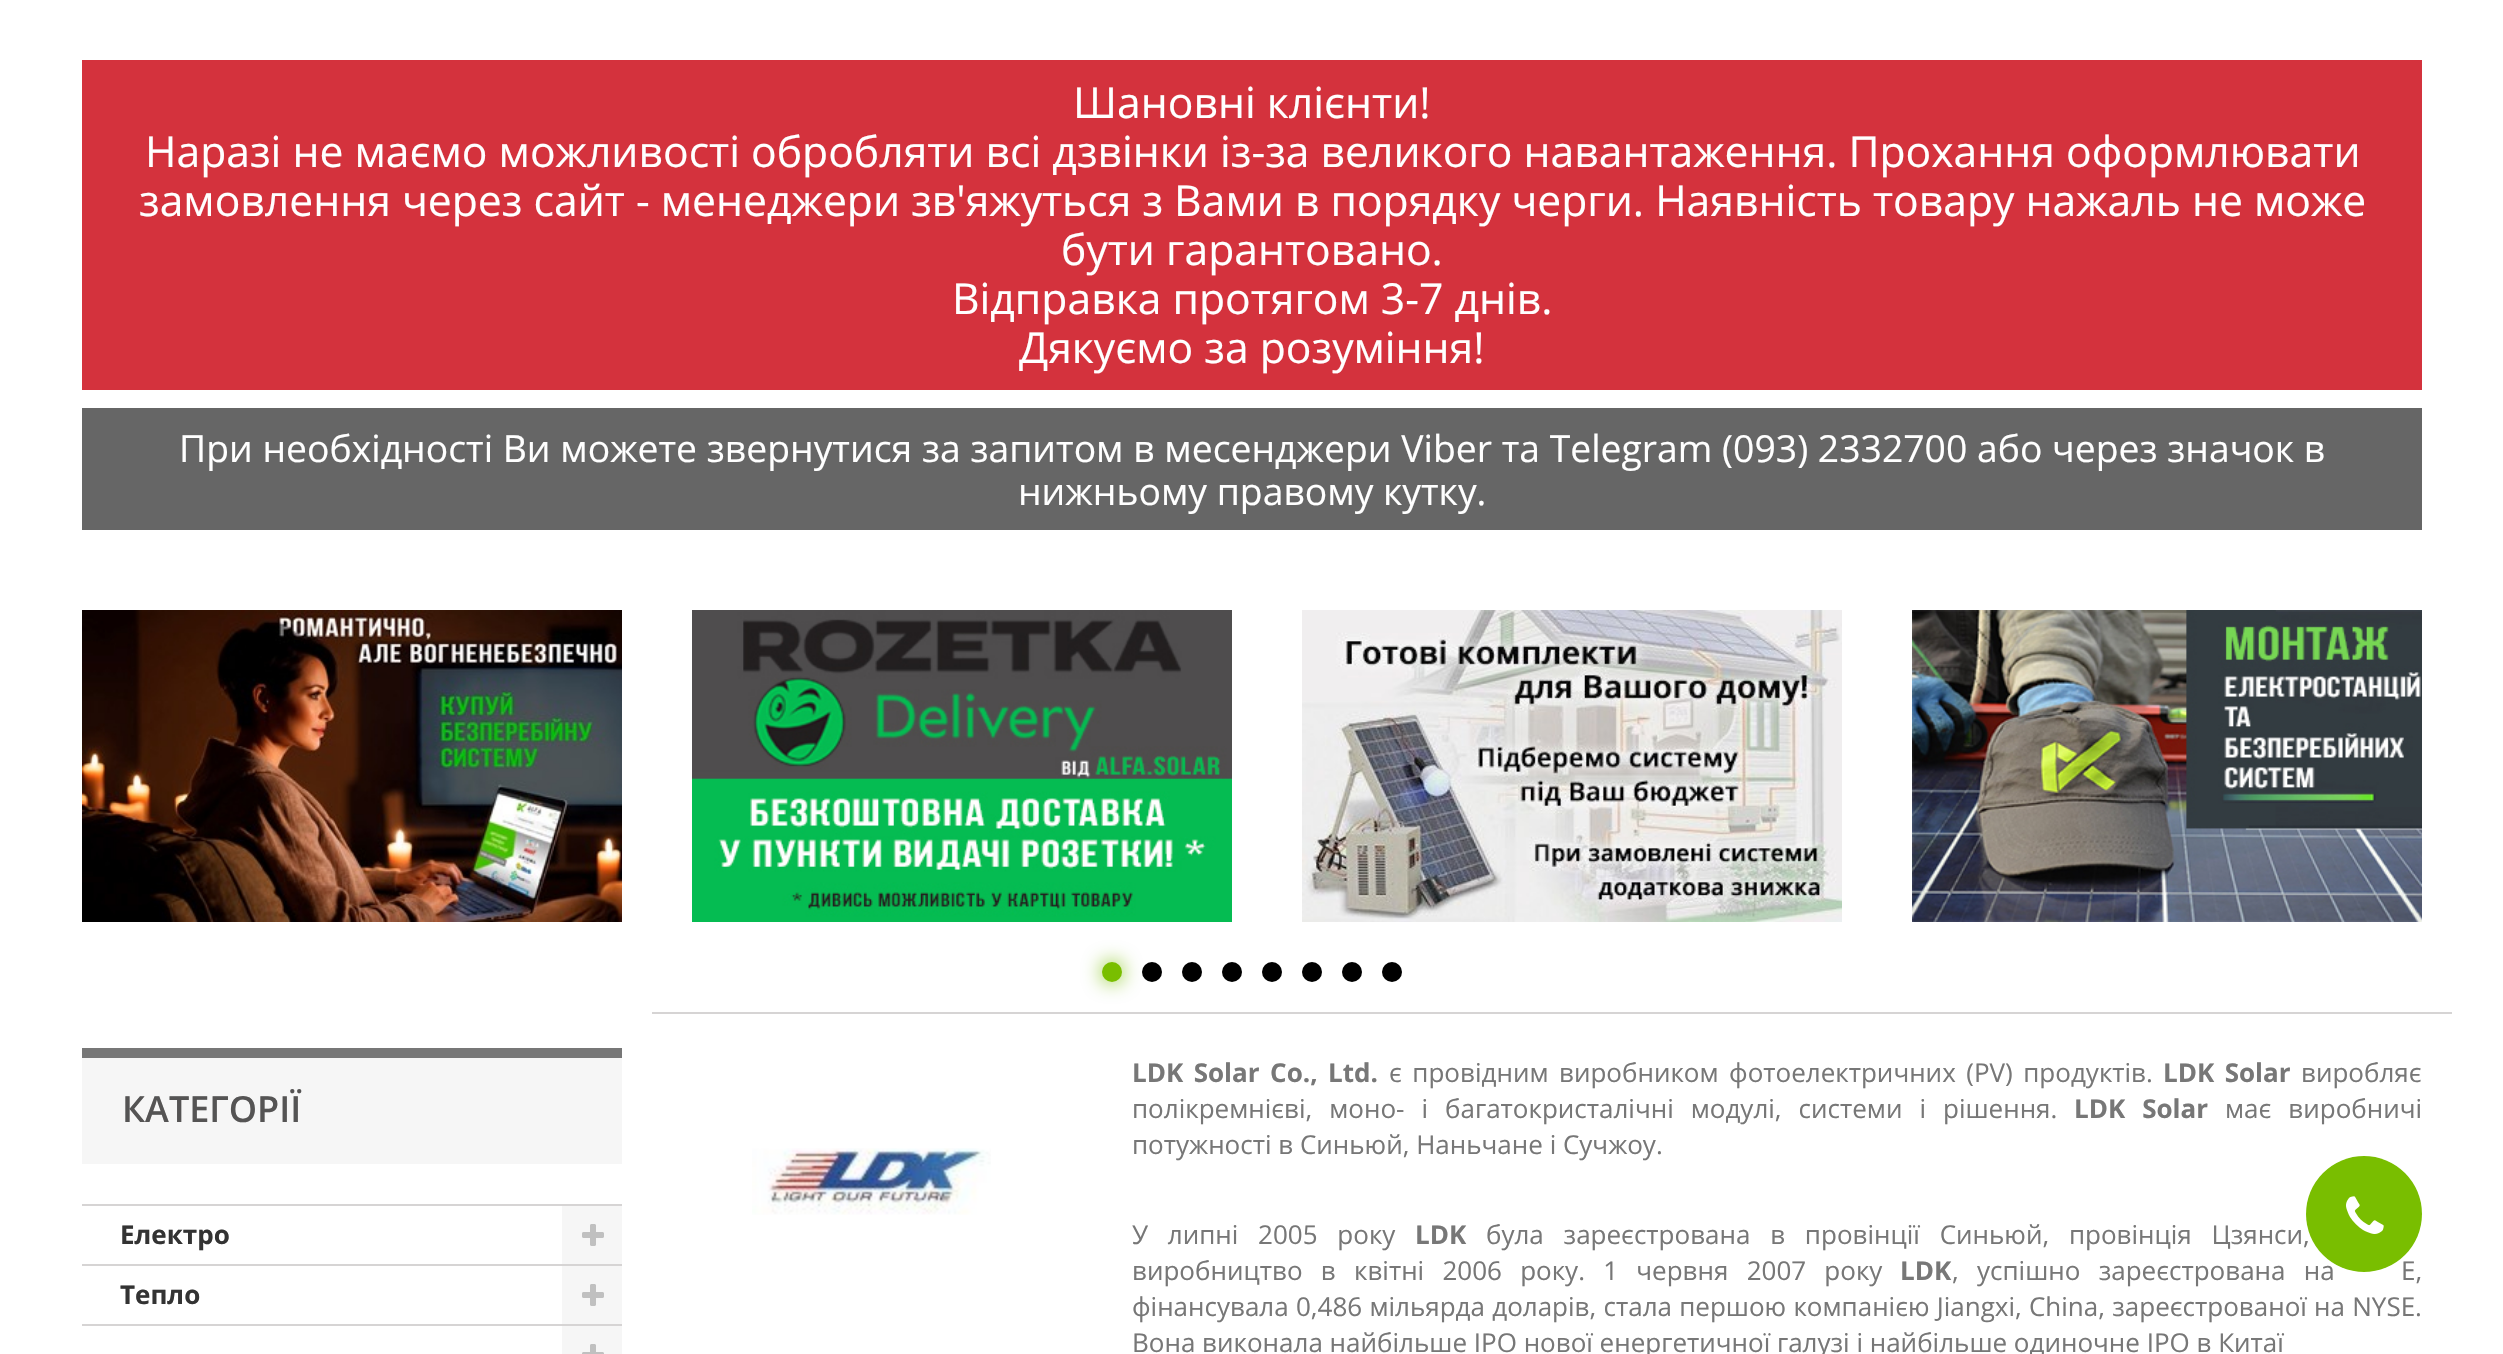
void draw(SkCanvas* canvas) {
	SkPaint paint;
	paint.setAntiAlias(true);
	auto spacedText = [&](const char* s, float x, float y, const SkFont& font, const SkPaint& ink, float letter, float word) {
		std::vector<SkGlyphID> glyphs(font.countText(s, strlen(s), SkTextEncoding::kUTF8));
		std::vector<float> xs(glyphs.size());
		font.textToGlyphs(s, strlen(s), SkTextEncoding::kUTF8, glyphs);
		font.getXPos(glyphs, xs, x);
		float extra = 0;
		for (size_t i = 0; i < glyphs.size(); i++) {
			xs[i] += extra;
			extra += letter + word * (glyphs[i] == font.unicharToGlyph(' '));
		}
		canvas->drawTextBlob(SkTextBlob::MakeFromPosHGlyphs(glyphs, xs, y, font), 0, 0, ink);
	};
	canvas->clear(0xffffffff);
	paint.setColor(0xffd4323d);
	canvas->drawRect(SkRect::MakeXYWH(82, 60, 2340, 330), paint);
	SkFont f1(fontMgr->matchFamilyStyle("Open Sans", SkFontStyle::Normal()), 42.67);
	f1.setSubpixel(true);
	paint.setColor(0xffffffff);
	canvas->drawString("Шановні клієнти!", 1073, 118, f1, paint);
	canvas->drawString("Наразі не маємо можливості обробляти всі дзвінки із-за великого навантаження. Прохання оформлювати", 145, 167, f1, paint);
	canvas->drawString("замовлення через сайт - менеджери зв'яжуться з Вами в порядку черги. Наявність товару нажаль не може", 139, 216, f1, paint);
	canvas->drawString("бути гарантовано.", 1061, 265, f1, paint);
	canvas->drawString("Відправка протягом 3-7 днів.", 952, 314, f1, paint);
	canvas->drawString("Дякуємо за розуміння!", 1019, 363, f1, paint);
	paint.setColor(0xff666666);
	canvas->drawRect(SkRect::MakeXYWH(82, 408, 2340, 122), paint);
	SkFont f2(fontMgr->matchFamilyStyle("Open Sans", SkFontStyle::Normal()), 37.33);
	f2.setSubpixel(true);
	paint.setColor(0xffffffff);
	canvas->drawString("При необхідності Ви можете звернутися за запитом в месенджери Viber та Telegram (093) 2332700 або через значок в", 179, 462, f2, paint);
	canvas->drawString("нижньому правому кутку.", 1018, 505, f2, paint);
	canvas->drawImageRect(SkImages::DeferredFromEncodedData(SkData::MakeFromFileName("img1.png")), SkRect::MakeXYWH(82, 610, 540, 312), SkSamplingOptions());
	canvas->drawImageRect(SkImages::DeferredFromEncodedData(SkData::MakeFromFileName("img2.png")), SkRect::MakeXYWH(692, 610, 540, 312), SkSamplingOptions());
	canvas->drawImageRect(SkImages::DeferredFromEncodedData(SkData::MakeFromFileName("img3.png")), SkRect::MakeXYWH(1302, 610, 540, 312), SkSamplingOptions());
	canvas->drawImageRect(SkImages::DeferredFromEncodedData(SkData::MakeFromFileName("img4.png")), SkRect::MakeXYWH(1912, 610, 510, 312), SkSamplingOptions());
	paint.setColor(0xff79be00);
	paint.setMaskFilter(SkMaskFilter::MakeBlur(kNormal_SkBlurStyle, 10));
	canvas->drawRoundRect(SkRect::MakeXYWH(1102, 962, 20, 20), 10, 10, paint);
	paint.setMaskFilter(nullptr);
	canvas->drawCircle(1112, 972, 10, paint);
	paint.setColor(0xff000000);
	canvas->drawCircle(1152, 972, 10, paint);
	canvas->drawCircle(1192, 972, 10, paint);
	canvas->drawCircle(1232, 972, 10, paint);
	canvas->drawCircle(1272, 972, 10, paint);
	canvas->drawCircle(1312, 972, 10, paint);
	canvas->drawCircle(1352, 972, 10, paint);
	canvas->drawCircle(1392, 972, 10, paint);
	paint.setColor(0xfff6f6f6);
	canvas->drawRect(SkRect::MakeXYWH(82, 1058, 540, 106), paint);
	paint.setColor(0xff777777);
	canvas->drawRect(SkRect::MakeXYWH(82, 1048, 540, 10), paint);
	SkFont f3(fontMgr->matchFamilyStyle("Open Sans", SkFontStyle(600, SkFontStyle::kNormal_Width, SkFontStyle::kUpright_Slant)), 36);
	f3.setSubpixel(true);
	paint.setColor(0xff555454);
	canvas->drawString("КАТЕГОРІЇ", 122, 1122, f3, paint);
	paint.setColor(0xffd6d4d4);
	canvas->drawRect(SkRect::MakeXYWH(82, 1204, 540, 2), paint);
	canvas->drawRect(SkRect::MakeXYWH(82, 1264, 540, 2), paint);
	SkFont f4(fontMgr->matchFamilyStyle("Open Sans", SkFontStyle::Bold()), 26);
	f4.setSubpixel(true);
	paint.setColor(0xff333333);
	canvas->drawString("Електро", 120, 1244, f4, paint);
	paint.setColor(0xfff6f6f6);
	canvas->drawRect(SkRect::MakeXYWH(562, 1206, 60, 58), paint);
	canvas->drawImageRect(SkImages::DeferredFromEncodedData(SkData::MakeFromFileName("img5.png")), SkRect::MakeXYWH(582, 1224, 22, 22), SkSamplingOptions());
	paint.setColor(0xffd6d4d4);
	canvas->drawRect(SkRect::MakeXYWH(82, 1324, 540, 2), paint);
	paint.setColor(0xff333333);
	canvas->drawString("Тепло", 120, 1304, f4, paint);
	paint.setColor(0xfff6f6f6);
	canvas->drawRect(SkRect::MakeXYWH(562, 1266, 60, 58), paint);
	canvas->drawImageRect(SkImages::DeferredFromEncodedData(SkData::MakeFromFileName("img5.png")), SkRect::MakeXYWH(582, 1284, 22, 22), SkSamplingOptions());
	canvas->drawRect(SkRect::MakeXYWH(562, 1326, 60, 28), paint);
	canvas->drawImageRect(SkImages::DeferredFromEncodedData(SkData::MakeFromFileName("img6.png")), SkRect::MakeXYWH(582, 1344, 22, 10), SkSamplingOptions());
	paint.setColor(0xffd6d4d4);
	canvas->drawRect(SkRect::MakeXYWH(652, 1012, 1800, 2), paint);
	canvas->drawImageRect(SkImages::DeferredFromEncodedData(SkData::MakeFromFileName("img7.png")), SkRect::MakeXYWH(752, 1148, 239, 67), SkSamplingOptions());
	paint.setColor(0xff777777);
	spacedText("LDK Solar Co., Ltd.", 1132, 1082, f4, paint, 0, 3.75);
	SkFont f5(fontMgr->matchFamilyStyle("Open Sans", SkFontStyle::Normal()), 26);
	f5.setSubpixel(true);
	spacedText("є провідним виробником фотоелектричних (PV) продуктів.", 1389, 1082, f5, paint, 0, 3.75);
	spacedText("LDK Solar", 2163, 1082, f4, paint, 0, 3.75);
	canvas->drawString("виробляє", 2301, 1082, f5, paint);
	spacedText("полікремнієві, моно- і багатокристалічні модулі, системи і рішення.", 1132, 1118, f5, paint, 0, 10.25);
	spacedText("LDK Solar", 2074, 1118, f4, paint, 0, 10.25);
	spacedText("має виробничі", 2225, 1118, f5, paint, 0, 10.25);
	canvas->drawString("потужності в Синьюй, Наньчане і Сучжоу.", 1132, 1154, f5, paint);
	spacedText("У липні 2005 року", 1132, 1244, f5, paint, 0, 13);
	canvas->drawString("LDK", 1415, 1244, f4, paint);
	spacedText("була зареєстрована в провінції Синьюй, провінція Цзянси,", 1486, 1244, f5, paint, 0, 13);
	spacedText("виробництво в квітні 2006 року. 1 червня 2007 року", 1132, 1280, f5, paint, 0, 11.5);
	canvas->drawString("LDK", 1900, 1280, f4, paint);
	spacedText(", успішно зареєстрована на", 1952, 1280, f5, paint, 0, 11.5);
	spacedText("E,", 2401, 1280, f5, paint, 0, 11.5);
	spacedText("фінансувала 0,486 мільярда доларів, стала першою компанією Jiangxi, China, зареєстрованої на NYSE.", 1132, 1316, f5, paint, 0, 0.5);
	canvas->drawString("Вона виконала найбільше IPO нової енергетичної галузі і найбільше одиночне IPO в Китаї", 1132, 1352, f5, paint);
	paint.setColor(0xff79be00);
	canvas->drawCircle(2364, 1214, 58, paint);
	paint.setStroke(true);
	paint.setStrokeWidth(2);
	paint.setColor(0x33ffffff);
	canvas->drawCircle(2364, 1214, 59, paint);
	canvas->drawImageRect(SkImages::DeferredFromEncodedData(SkData::MakeFromFileName("img8.png")), SkRect::MakeXYWH(2346, 1196, 38, 38), SkSamplingOptions());
}
